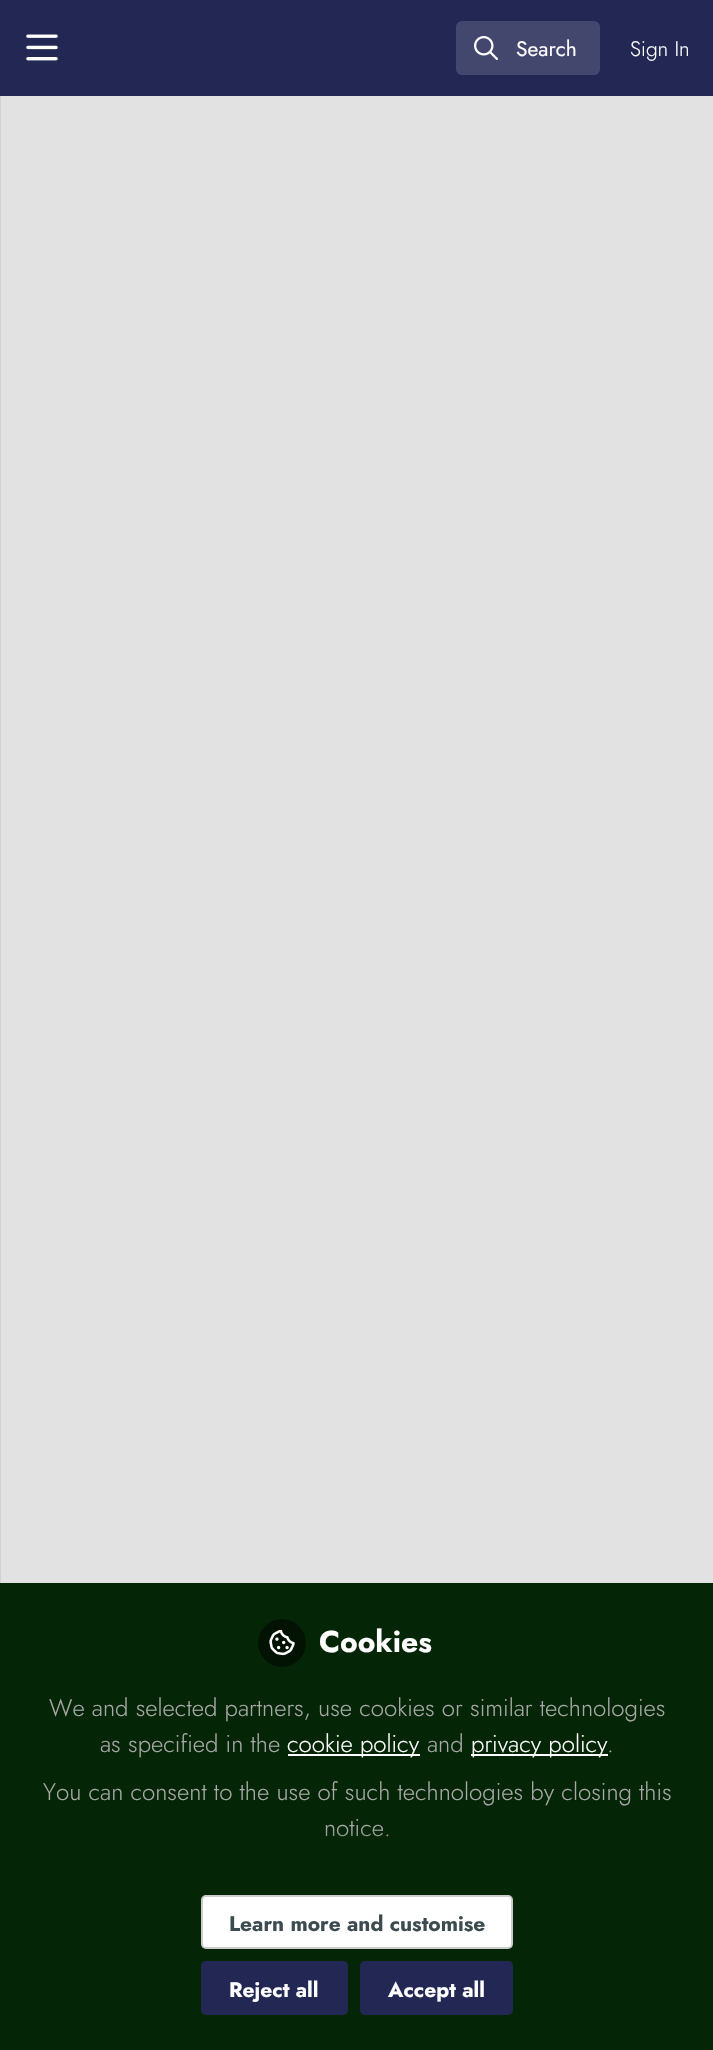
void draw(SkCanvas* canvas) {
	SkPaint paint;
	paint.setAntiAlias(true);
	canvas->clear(0xffe2e2e2);
	paint.setColor(0xff222753);
	canvas->drawRect(SkRect::MakeXYWH(0, 0, 713, 96), paint);
	canvas->drawImageRect(SkImages::DeferredFromEncodedData(SkData::MakeFromFileName("img1.png")), SkRect::MakeXYWH(26, 34, 32, 27), SkSamplingOptions());
	paint.setColor(0xff43476d);
	canvas->drawRoundRect(SkRect::MakeXYWH(456, 21, 144, 54), 6, 6, paint);
	canvas->drawImageRect(SkImages::DeferredFromEncodedData(SkData::MakeFromFileName("img2.png")), SkRect::MakeXYWH(474, 36, 24, 24), SkSamplingOptions());
	SkFont f1(fontMgr->matchFamilyStyle("Jost", SkFontStyle::Normal()), 21);
	f1.setSubpixel(true);
	paint.setColor(0xffffffff);
	canvas->drawString("Search", 516, 56, f1, paint);
	SkFont f2(fontMgr->matchFamilyStyle("Jost", SkFontStyle(300, SkFontStyle::kNormal_Width, SkFontStyle::kUpright_Slant)), 21);
	f2.setSubpixel(true);
	canvas->drawString("Sign In", 630, 56, f2, paint);
	paint.setColor(0xffd2d2d2);
	canvas->drawRect(SkRect::MakeXYWH(0, 96, 1, 1487), paint);
	paint.setColor(0xff052606);
	canvas->drawRect(SkRect::MakeXYWH(0, 1583, 713, 467), paint);
	paint.setColor(0xff031303);
	canvas->drawCircle(282, 1643, 24, paint);
	canvas->drawImageRect(SkImages::DeferredFromEncodedData(SkData::MakeFromFileName("img3.png")), SkRect::MakeXYWH(269, 1629, 26, 27), SkSamplingOptions());
	SkFont f3(fontMgr->matchFamilyStyle("Jost", SkFontStyle::Bold()), 30);
	f3.setSubpixel(true);
	paint.setColor(0xffffffff);
	canvas->drawString("Cookies", 319, 1652, f3, paint);
	SkFont f4(fontMgr->matchFamilyStyle("Jost", SkFontStyle(300, SkFontStyle::kNormal_Width, SkFontStyle::kUpright_Slant)), 24);
	f4.setSubpixel(true);
	paint.setColor(0xffa8a8a8);
	canvas->drawString("We and selected partners, use cookies or similar technologies", 49, 1716, f4, paint);
	canvas->drawString("as specified in the", 100, 1752, f4, paint);
	paint.setColor(0xffffffff);
	canvas->drawRect(SkRect::MakeXYWH(288, 1754, 132, 2), paint);
	canvas->drawString("cookie policy", 287, 1752, f4, paint);
	paint.setColor(0xffa8a8a8);
	canvas->drawString("and", 427, 1752, f4, paint);
	paint.setColor(0xffffffff);
	canvas->drawRect(SkRect::MakeXYWH(471, 1754, 137, 2), paint);
	canvas->drawString("privacy policy", 471, 1752, f4, paint);
	paint.setColor(0xffa8a8a8);
	canvas->drawString(".", 607, 1752, f4, paint);
	canvas->drawString("You can consent to the use of such technologies by closing this", 43, 1800, f4, paint);
	canvas->drawString("notice.", 324, 1836, f4, paint);
	{
		const SkColor colors[] = {0xff052606, 0x00052606};
		const float stops[] = {0, 1};
		const SkPoint ends[] = {{357, 1877}, {357, 1829}};
		paint.setShader(SkGradientShader::MakeLinear(ends, colors, stops, 2, SkTileMode::kClamp));
		paint.setAlpha(255);
	}
	canvas->drawRect(SkRect::MakeXYWH(325, 1830, 63, 7), paint);
	paint.setShader(nullptr);
	paint.setColor(0xffffffff);
	canvas->drawRoundRect(SkRect::MakeXYWH(202, 1896, 310, 52), 4, 4, paint);
	paint.setStroke(true);
	paint.setStrokeWidth(2);
	paint.setColor(0xffcccccc);
	canvas->drawRoundRect(SkRect::MakeXYWH(202, 1896, 310, 52), 4, 4, paint);
	SkFont f5(fontMgr->matchFamilyStyle("Jost", SkFontStyle::Bold()), 21);
	f5.setSubpixel(true);
	paint.setStroke(false);
	paint.setColor(0xff3b4b50);
	canvas->drawString("Learn more and customise", 229, 1931, f5, paint);
	paint.setColor(0xff222753);
	canvas->drawRoundRect(SkRect::MakeXYWH(202, 1962, 145, 52), 4, 4, paint);
	paint.setStroke(true);
	canvas->drawRoundRect(SkRect::MakeXYWH(202, 1962, 145, 52), 4, 4, paint);
	paint.setStroke(false);
	paint.setColor(0xffffffff);
	canvas->drawString("Reject all", 229, 1997, f5, paint);
	paint.setColor(0xff222753);
	canvas->drawRoundRect(SkRect::MakeXYWH(361, 1962, 151, 52), 4, 4, paint);
	paint.setStroke(true);
	canvas->drawRoundRect(SkRect::MakeXYWH(361, 1962, 151, 52), 4, 4, paint);
	paint.setStroke(false);
	paint.setColor(0xffffffff);
	canvas->drawString("Accept all", 388, 1997, f5, paint);
}
